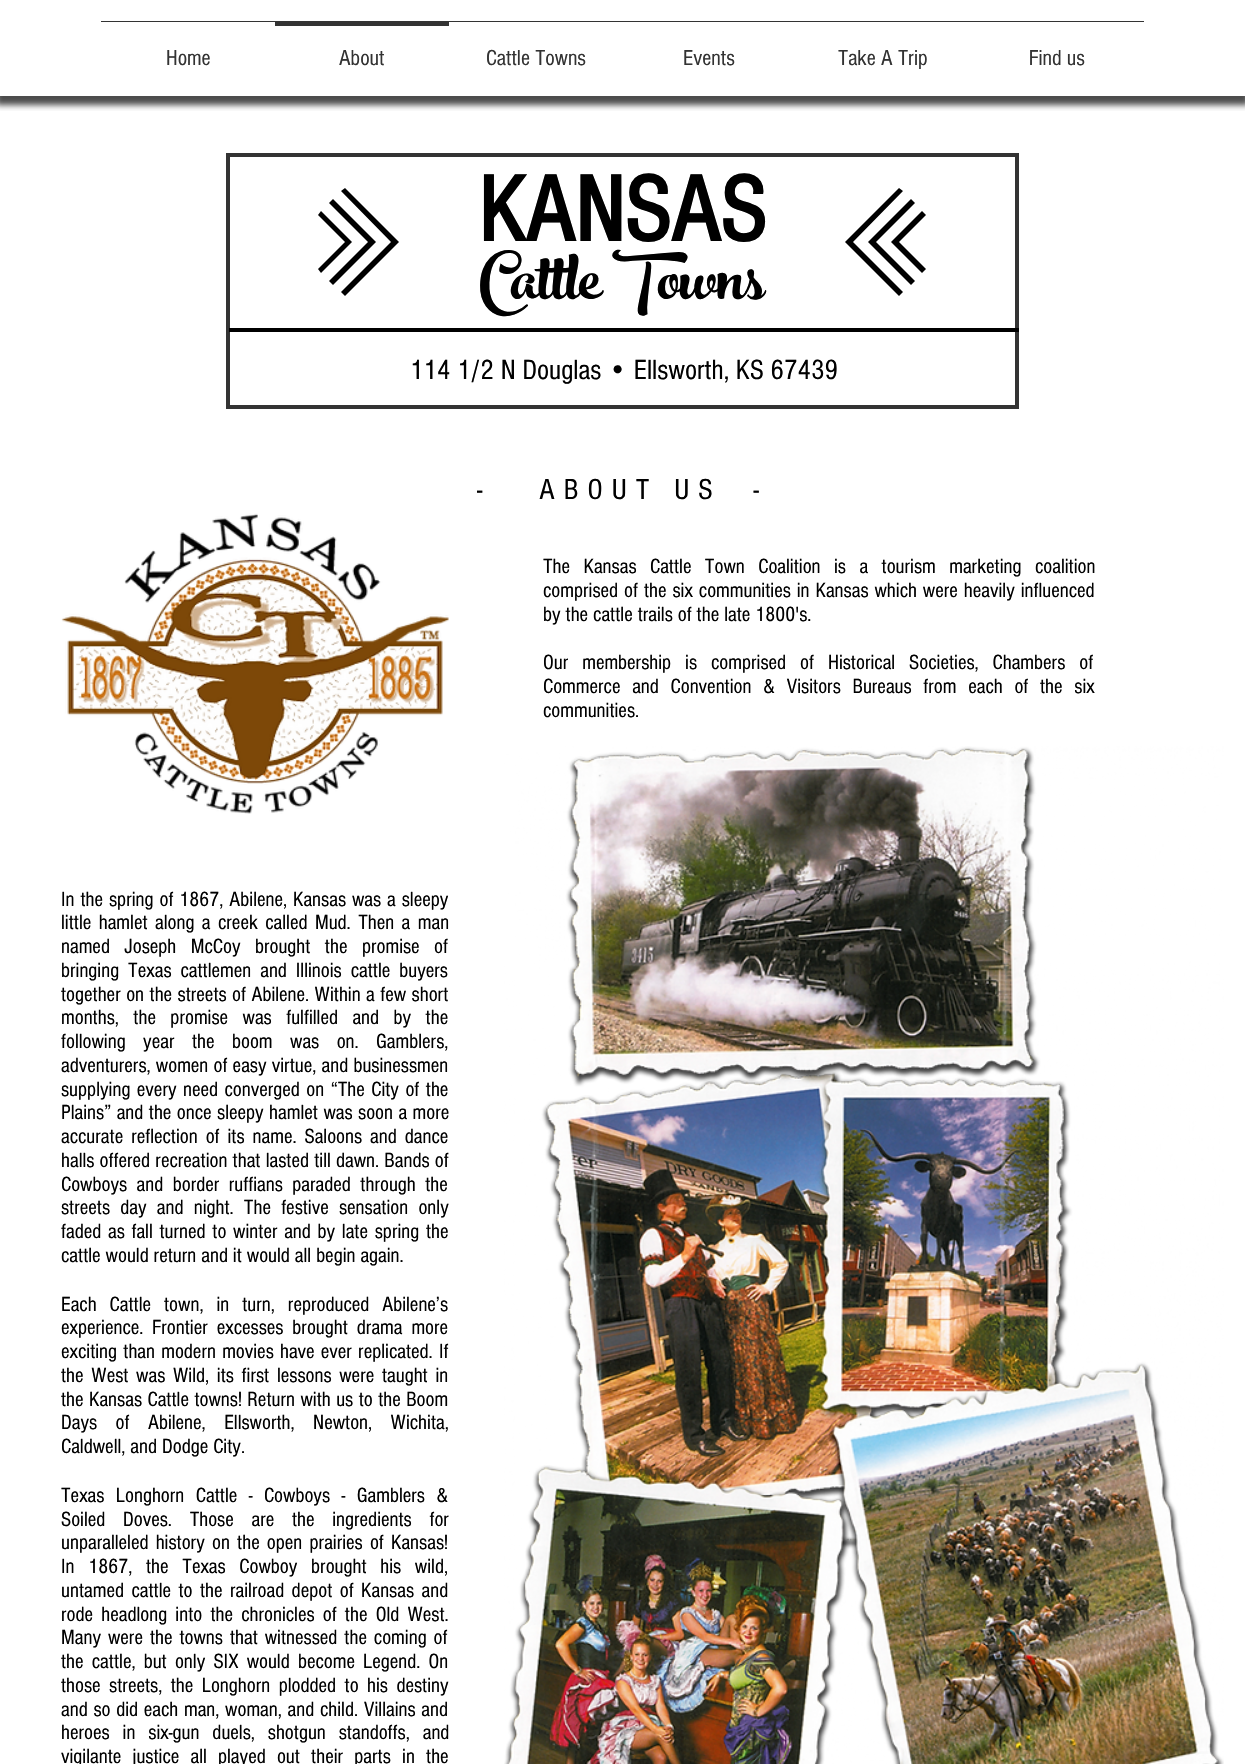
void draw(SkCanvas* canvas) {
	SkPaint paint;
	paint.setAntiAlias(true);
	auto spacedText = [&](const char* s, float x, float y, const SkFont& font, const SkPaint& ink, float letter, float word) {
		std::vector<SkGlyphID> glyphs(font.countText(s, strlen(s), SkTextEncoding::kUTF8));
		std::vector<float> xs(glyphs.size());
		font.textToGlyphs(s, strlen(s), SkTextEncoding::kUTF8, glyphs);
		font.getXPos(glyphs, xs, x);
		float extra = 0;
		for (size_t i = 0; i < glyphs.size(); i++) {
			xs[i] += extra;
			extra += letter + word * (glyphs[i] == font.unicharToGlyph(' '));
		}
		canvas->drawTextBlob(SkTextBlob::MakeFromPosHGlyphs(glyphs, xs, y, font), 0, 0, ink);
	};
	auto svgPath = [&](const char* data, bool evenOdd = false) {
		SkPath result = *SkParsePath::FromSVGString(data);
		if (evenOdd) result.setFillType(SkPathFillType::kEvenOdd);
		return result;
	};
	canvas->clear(0xffffffff);
	canvas->save();
	canvas->clipRect(SkRect::MakeXYWH(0, 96, 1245, 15));
	paint.setColor(0xb3000000);
	paint.setMaskFilter(SkMaskFilter::MakeBlur(kNormal_SkBlurStyle, 3));
	canvas->drawRect(SkRect::MakeXYWH(-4, 1, 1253, 104), paint);
	paint.setMaskFilter(nullptr);
	canvas->restore();
	paint.setColor(0xff333333);
	canvas->drawRect(SkRect::MakeXYWH(101, 21, 174, 1), paint);
	SkFont f1(fontMgr->matchFamilyStyle("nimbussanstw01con", SkFontStyle::Normal()), 22.5);
	f1.setSubpixel(true);
	canvas->drawString("Home", 166, 65, f1, paint);
	canvas->drawRect(SkRect::MakeXYWH(275, 21, 174, 5), paint);
	canvas->drawString("About", 339, 65, f1, paint);
	canvas->drawRect(SkRect::MakeXYWH(449, 21, 695, 1), paint);
	canvas->drawString("Cattle Towns", 486, 65, f1, paint);
	canvas->drawString("Events", 683, 65, f1, paint);
	canvas->drawString("Take A Trip", 838, 65, f1, paint);
	canvas->drawString("Find us", 1029, 65, f1, paint);
	paint.setStroke(true);
	paint.setStrokeWidth(4);
	canvas->drawRect(SkRect::MakeXYWH(228, 155, 789, 252), paint);
	paint.setStroke(false);
	paint.setColor(0xff000000);
	canvas->drawPath(svgPath("M376 242L333 199L329 203L368 242L329 281L333 285Z"), paint);
	canvas->drawPath(svgPath("M352 242L321 211L318 215L345 242L318 269L321 273Z"), paint);
	canvas->drawPath(svgPath("M395 246L399 242L345 188L341 191L391 242L341 292L345 296Z"), paint);
	SkFont f2(fontMgr->matchFamilyStyle("nimbussanstw01con", SkFontStyle::Bold()), 96);
	f2.setSubpixel(true);
	canvas->drawString("KANSAS", 478, 241, f2, paint);
	SkFont f3(fontMgr->matchFamilyStyle("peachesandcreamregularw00", SkFontStyle::Normal()), 96);
	f3.setSubpixel(true);
	canvas->drawString("Cattle Towns", 480, 299, f3, paint);
	canvas->drawPath(svgPath("M868 242L911 285L915 281L876 242L915 203L911 199Z"), paint);
	canvas->drawPath(svgPath("M891 242L922 273L926 269L899 242L926 215L922 211Z"), paint);
	canvas->drawPath(svgPath("M849 238L845 242L899 296L903 292L853 242L903 191L899 188Z"), paint);
	canvas->drawRect(SkRect::MakeXYWH(229, 328, 790, 4), paint);
	SkFont f4(fontMgr->matchFamilyStyle("nimbussanstw01con", SkFontStyle::Normal()), 28.75);
	f4.setSubpixel(true);
	canvas->drawString("114 1/2 N Douglas • Ellsworth, KS 67439", 410, 379, f4, paint);
	SkFont f5(fontMgr->matchFamilyStyle("nimbussanstw01con", SkFontStyle::Normal()), 30);
	f5.setSubpixel(true);
	spacedText("-   ABOUT US  -", 477, 499, f5, paint, 9, 0);
	canvas->drawImageRect(SkImages::DeferredFromEncodedData(SkData::MakeFromFileName("img1.png")), SkRect::MakeXYWH(61, 513, 388, 301), SkSamplingOptions());
	SkFont f6(fontMgr->matchFamilyStyle("nimbussanstw01con", SkFontStyle::Normal()), 21.25);
	f6.setSubpixel(true);
	spacedText("The Kansas Cattle Town Coalition is a tourism marketing coalition", 543, 573, f6, paint, 0, 8.5);
	spacedText("comprised of the six communities in Kansas which were heavily influenced", 543, 597, f6, paint, 0, 1);
	canvas->drawString("by the cattle trails of the late 1800's.", 543, 621, f6, paint);
	spacedText("Our membership is comprised of Historical Societies, Chambers of", 543, 669, f6, paint, 0, 9);
	spacedText("Commerce and Convention & Visitors Bureaus from each of the six", 543, 693, f6, paint, 0, 6.75);
	canvas->drawString("communities.", 543, 717, f6, paint);
	spacedText("In the spring of 1867, Abilene, Kansas was a sleepy", 61, 906, f6, paint, 0, 1);
	spacedText("little hamlet along a creek called Mud. Then a man", 61, 929, f6, paint, 0, 2.5);
	spacedText("named Joseph McCoy brought the promise of", 61, 953, f6, paint, 0, 9.5);
	spacedText("bringing Texas cattlemen and Illinois cattle buyers", 61, 977, f6, paint, 0, 4);
	spacedText("together on the streets of Abilene. Within a few short", 61, 1001, f6, paint, 0, 0.5);
	spacedText("months, the promise was fulfilled and by the", 61, 1024, f6, paint, 0, 9.5);
	spacedText("following year the boom was on. Gamblers,", 61, 1048, f6, paint, 0, 12.5);
	spacedText("adventurers, women of easy virtue, and businessmen", 61, 1072, f6, paint, 0, 0.25);
	spacedText("supplying every need converged on “The City of the", 61, 1096, f6, paint, 0, 1.5);
	spacedText("Plains” and the once sleepy hamlet was soon a more", 61, 1119, f6, paint, 0, 0.5);
	spacedText("accurate reflection of its name. Saloons and dance", 61, 1143, f6, paint, 0, 3);
	spacedText("halls offered recreation that lasted till dawn. Bands of", 61, 1167, f6, paint, 0, 0.25);
	spacedText("Cowboys and border ruffians paraded through the", 61, 1191, f6, paint, 0, 4.5);
	spacedText("streets day and night. The festive sensation only", 61, 1214, f6, paint, 0, 5.25);
	spacedText("faded as fall turned to winter and by late spring the", 61, 1238, f6, paint, 0, 1.75);
	canvas->drawString("cattle would return and it would all begin again.", 61, 1262, f6, paint);
	spacedText("Each Cattle town, in turn, reproduced Abilene’s", 61, 1311, f6, paint, 0, 8);
	spacedText("experience. Frontier excesses brought drama more", 61, 1334, f6, paint, 0, 4);
	spacedText("exciting than modern movies have ever replicated. If", 61, 1358, f6, paint, 0, 1.25);
	spacedText("the West was Wild, its first lessons were taught in", 61, 1382, f6, paint, 0, 2.75);
	spacedText("the Kansas Cattle towns! Return with us to the Boom", 61, 1406, f6, paint, 0, 0.5);
	spacedText("Days of Abilene, Ellsworth, Newton, Wichita,", 61, 1429, f6, paint, 0, 13.5);
	canvas->drawString("Caldwell, and Dodge City.", 61, 1453, f6, paint);
	spacedText("Texas Longhorn Cattle - Cowboys - Gamblers &", 61, 1502, f6, paint, 0, 6.5);
	spacedText("Soiled Doves. Those are the ingredients for", 61, 1526, f6, paint, 0, 12.75);
	spacedText("unparalleled history on the open prairies of Kansas!", 61, 1549, f6, paint, 0, 2.25);
	spacedText("In 1867, the Texas Cowboy brought his wild,", 61, 1573, f6, paint, 0, 8.75);
	spacedText("untamed cattle to the railroad depot of Kansas and", 61, 1597, f6, paint, 0, 2.5);
	spacedText("rode headlong into the chronicles of the Old West.", 61, 1621, f6, paint, 0, 3.25);
	spacedText("Many were the towns that witnessed the coming of", 61, 1644, f6, paint, 0, 2);
	spacedText("the cattle, but only SIX would become Legend. On", 61, 1668, f6, paint, 0, 3.25);
	spacedText("those streets, the Longhorn plodded to his destiny", 61, 1692, f6, paint, 0, 3.5);
	spacedText("and so did each man, woman, and child. Villains and", 61, 1716, f6, paint, 0, 0.75);
	spacedText("heroes in six-gun duels, shotgun standoffs, and", 61, 1739, f6, paint, 0, 8);
	spacedText("vigilante justice all played out their parts in the", 61, 1763, f6, paint, 0, 6.25);
	canvas->drawImageRect(SkImages::DeferredFromEncodedData(SkData::MakeFromFileName("img2.png")), SkRect::MakeXYWH(504, 746, 720, 1018), SkSamplingOptions());
}
